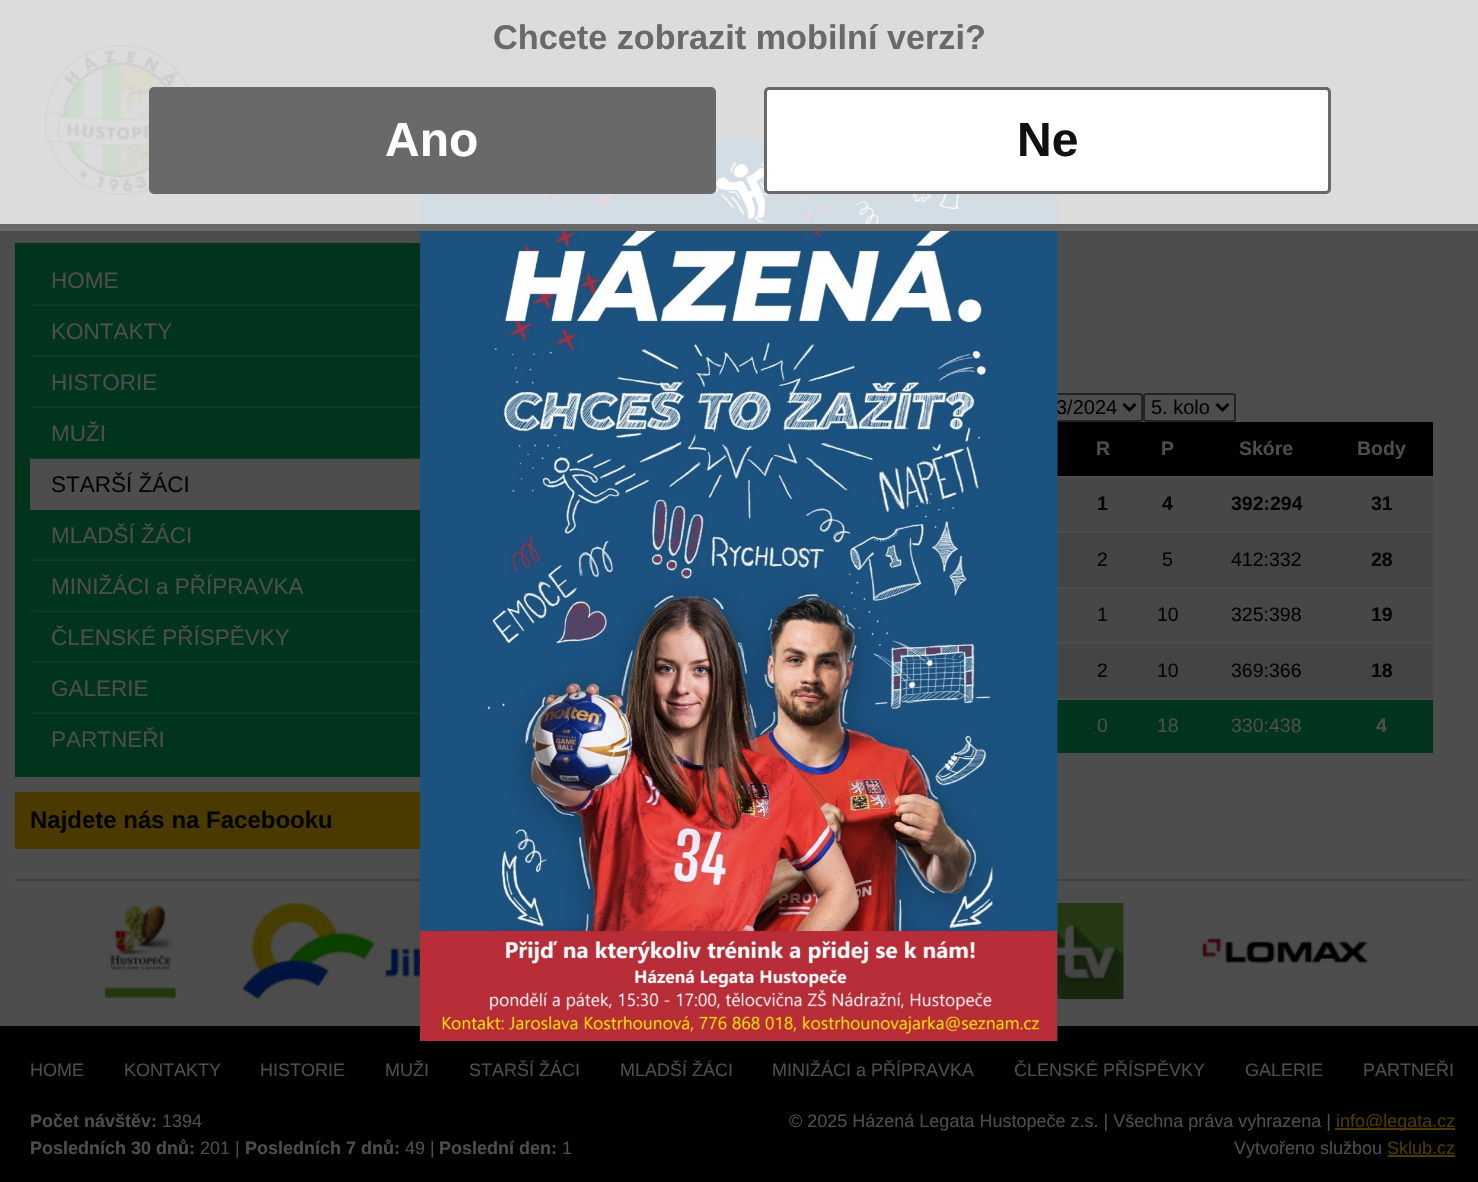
void draw(SkCanvas* canvas) {
	SkPaint paint;
	paint.setAntiAlias(true);
	auto svgPath = [&](const char* data, bool evenOdd = false) {
		SkPath result = *SkParsePath::FromSVGString(data);
		if (evenOdd) result.setFillType(SkPathFillType::kEvenOdd);
		return result;
	};
	canvas->clear(0xff000000);
	paint.setColor(0xff4d4d4d);
	canvas->drawRect(SkRect::MakeXYWH(0, 0, 1478, 1026), paint);
	paint.setStroke(true);
	paint.setStrokeWidth(2);
	paint.setColor(0xff232323);
	canvas->drawRoundRect(SkRect::MakeXYWH(489, 394, 653, 27), 2, 2, paint);
	SkFont f1(fontMgr->matchFamilyStyle("Liberation Sans", SkFontStyle::Normal()), 20);
	f1.setSubpixel(true);
	paint.setStroke(false);
	paint.setColor(0xff050505);
	canvas->drawString("3/2024", 1056, 414, f1, paint);
	paint.setColor(0xff000000);
	canvas->drawRect(SkRect::MakeXYWH(1057, 422, 376, 54), paint);
	paint.setColor(0xff474747);
	canvas->drawRect(SkRect::MakeXYWH(1057, 478, 376, 53), paint);
	paint.setColor(0xff444444);
	canvas->drawRect(SkRect::MakeXYWH(1057, 533, 376, 54), paint);
	paint.setColor(0xff474747);
	canvas->drawRect(SkRect::MakeXYWH(1057, 589, 376, 53), paint);
	paint.setColor(0xff444444);
	canvas->drawRect(SkRect::MakeXYWH(1057, 644, 376, 54), paint);
	paint.setColor(0xff00341d);
	canvas->drawRect(SkRect::MakeXYWH(1057, 700, 376, 53), paint);
	paint.setColor(0xff404040);
	canvas->drawRect(SkRect::MakeXYWH(15, 879, 1455, 2), paint);
	canvas->drawImageRect(SkImages::DeferredFromEncodedData(SkData::MakeFromFileName("img6.png")), SkRect::MakeXYWH(1057, 903, 67, 96), SkSamplingOptions());
	canvas->drawImageRect(SkImages::DeferredFromEncodedData(SkData::MakeFromFileName("img1.png")), SkRect::MakeXYWH(420, 141, 638, 900), SkSamplingOptions());
	canvas->drawImageRect(SkImages::DeferredFromEncodedData(SkData::MakeFromFileName("img2.png")), SkRect::MakeXYWH(45, 45, 152, 150), SkSamplingOptions());
	paint.setColor(0xccffffff);
	canvas->drawRect(SkRect::MakeXYWH(0, 0, 1478, 224), paint);
	paint.setColor(0xff696969);
	canvas->drawRect(SkRect::MakeXYWH(0, 224, 1478, 7), paint);
	SkFont f2(fontMgr->matchFamilyStyle("Liberation Sans", SkFontStyle::Bold()), 34.25);
	f2.setSubpixel(true);
	canvas->drawString("Chcete zobrazit mobilní verzi?", 493, 49, f2, paint);
	canvas->drawRoundRect(SkRect::MakeXYWH(150.5, 88.5, 564, 104), 3.5, 3.5, paint);
	paint.setStroke(true);
	paint.setStrokeWidth(3);
	canvas->drawRoundRect(SkRect::MakeXYWH(150.5, 88.5, 564, 104), 3.5, 3.5, paint);
	SkFont f3(fontMgr->matchFamilyStyle("Liberation Sans", SkFontStyle::Bold()), 48);
	f3.setSubpixel(true);
	paint.setStroke(false);
	paint.setColor(0xffffffff);
	canvas->drawString("Ano", 385, 156, f3, paint);
	canvas->drawRoundRect(SkRect::MakeXYWH(765.5, 88.5, 564, 104), 3.5, 3.5, paint);
	paint.setStroke(true);
	paint.setColor(0xff696969);
	canvas->drawRoundRect(SkRect::MakeXYWH(765.5, 88.5, 564, 104), 3.5, 3.5, paint);
	paint.setStroke(false);
	paint.setColor(0xff111111);
	canvas->drawString("Ne", 1017, 156, f3, paint);
	paint.setColor(0xff00341d);
	canvas->drawRect(SkRect::MakeXYWH(15, 243, 405, 534), paint);
	canvas->drawImageRect(SkImages::DeferredFromEncodedData(SkData::MakeFromFileName("img3.png")), SkRect::MakeXYWH(30, 304, 390, 2), SkSamplingOptions());
	SkFont f4(fontMgr->matchFamilyStyle("Liberation Sans", SkFontStyle::Normal()), 22.5);
	f4.setSubpixel(true);
	paint.setColor(0xff4d4d4d);
	canvas->drawString("HOME", 51, 288, f4, paint);
	canvas->drawImageRect(SkImages::DeferredFromEncodedData(SkData::MakeFromFileName("img3.png")), SkRect::MakeXYWH(30, 355, 390, 2), SkSamplingOptions());
	canvas->drawString("KONTAKTY", 51, 339, f4, paint);
	canvas->drawImageRect(SkImages::DeferredFromEncodedData(SkData::MakeFromFileName("img3.png")), SkRect::MakeXYWH(30, 406, 390, 2), SkSamplingOptions());
	canvas->drawString("HISTORIE", 51, 390, f4, paint);
	canvas->drawImageRect(SkImages::DeferredFromEncodedData(SkData::MakeFromFileName("img3.png")), SkRect::MakeXYWH(30, 457, 390, 2), SkSamplingOptions());
	canvas->drawString("MUŽI", 51, 441, f4, paint);
	canvas->drawRect(SkRect::MakeXYWH(30, 459, 390, 51), paint);
	paint.setColor(0xff050505);
	canvas->drawString("STARŠÍ ŽÁCI", 51, 492, f4, paint);
	canvas->drawImageRect(SkImages::DeferredFromEncodedData(SkData::MakeFromFileName("img3.png")), SkRect::MakeXYWH(30, 559, 390, 2), SkSamplingOptions());
	paint.setColor(0xff4d4d4d);
	canvas->drawString("MLADŠÍ ŽÁCI", 51, 543, f4, paint);
	canvas->drawImageRect(SkImages::DeferredFromEncodedData(SkData::MakeFromFileName("img3.png")), SkRect::MakeXYWH(30, 610, 390, 2), SkSamplingOptions());
	canvas->drawString("MINIŽÁCI a PŘÍPRAVKA", 51, 594, f4, paint);
	canvas->drawImageRect(SkImages::DeferredFromEncodedData(SkData::MakeFromFileName("img3.png")), SkRect::MakeXYWH(30, 661, 390, 2), SkSamplingOptions());
	canvas->drawString("ČLENSKÉ PŘÍSPĚVKY", 51, 645, f4, paint);
	canvas->drawImageRect(SkImages::DeferredFromEncodedData(SkData::MakeFromFileName("img3.png")), SkRect::MakeXYWH(30, 712, 390, 2), SkSamplingOptions());
	canvas->drawString("GALERIE", 51, 696, f4, paint);
	canvas->drawString("PARTNEŘI", 51, 747, f4, paint);
	paint.setColor(0xff4a3a00);
	canvas->drawRect(SkRect::MakeXYWH(15, 792, 405, 57), paint);
	SkFont f5(fontMgr->matchFamilyStyle("Liberation Sans", SkFontStyle::Bold()), 24);
	f5.setSubpixel(true);
	paint.setColor(0xff050505);
	canvas->drawString("Najdete nás na Facebooku", 30, 828, f5, paint);
	paint.setStroke(true);
	paint.setColor(0xff000000);
	canvas->drawPath(svgPath("M1123.5 404L1129.5 410L1135.5 404"), paint);
	paint.setStrokeWidth(2);
	paint.setColor(0xff232323);
	canvas->drawRoundRect(SkRect::MakeXYWH(1144, 394, 91, 27), 2, 2, paint);
	paint.setStrokeWidth(3);
	paint.setColor(0xff000000);
	canvas->drawPath(svgPath("M1216.5 404L1222.5 410L1228.5 404"), paint);
	paint.setStroke(false);
	paint.setColor(0xff050505);
	canvas->drawString("5. kolo", 1151, 414, f1, paint);
	SkFont f6(fontMgr->matchFamilyStyle("Liberation Sans", SkFontStyle::Bold()), 19.5);
	f6.setSubpixel(true);
	paint.setColor(0xff4d4d4d);
	canvas->drawString("R", 1096, 455, f6, paint);
	canvas->drawString("P", 1161, 455, f6, paint);
	canvas->drawString("Skóre", 1239, 455, f6, paint);
	canvas->drawString("Body", 1357, 455, f6, paint);
	paint.setColor(0xff050505);
	canvas->drawString("1", 1097, 510, f6, paint);
	canvas->drawString("4", 1162, 510, f6, paint);
	canvas->drawString("392:294", 1231, 510, f6, paint);
	canvas->drawString("31", 1371, 510, f6, paint);
	SkFont f7(fontMgr->matchFamilyStyle("Liberation Sans", SkFontStyle::Normal()), 19.5);
	f7.setSubpixel(true);
	canvas->drawString("2", 1097, 566, f7, paint);
	canvas->drawString("5", 1162, 566, f7, paint);
	canvas->drawString("412:332", 1231, 566, f7, paint);
	canvas->drawString("28", 1371, 566, f6, paint);
	canvas->drawString("1", 1097, 621, f7, paint);
	canvas->drawString("10", 1157, 621, f7, paint);
	canvas->drawString("325:398", 1231, 621, f7, paint);
	canvas->drawString("19", 1371, 621, f6, paint);
	canvas->drawString("2", 1097, 677, f7, paint);
	canvas->drawString("10", 1157, 677, f7, paint);
	canvas->drawString("369:366", 1231, 677, f7, paint);
	canvas->drawString("18", 1371, 677, f6, paint);
	paint.setColor(0xff4d4d4d);
	canvas->drawString("0", 1097, 732, f7, paint);
	canvas->drawString("18", 1157, 732, f7, paint);
	canvas->drawString("330:438", 1231, 732, f7, paint);
	canvas->drawString("4", 1376, 732, f6, paint);
	canvas->drawImageRect(SkImages::DeferredFromEncodedData(SkData::MakeFromFileName("img4.png")), SkRect::MakeXYWH(104, 904, 73, 95), SkSamplingOptions());
	canvas->drawImageRect(SkImages::DeferredFromEncodedData(SkData::MakeFromFileName("img5.png")), SkRect::MakeXYWH(243, 903, 177, 96), SkSamplingOptions());
	canvas->drawImageRect(SkImages::DeferredFromEncodedData(SkData::MakeFromFileName("img7.png")), SkRect::MakeXYWH(1200, 937, 169, 27), SkSamplingOptions());
	SkFont f8(fontMgr->matchFamilyStyle("Liberation Sans", SkFontStyle::Normal()), 18);
	f8.setSubpixel(true);
	canvas->drawString("HOME", 30, 1076, f8, paint);
	canvas->drawString("KONTAKTY", 124, 1076, f8, paint);
	canvas->drawString("HISTORIE", 260, 1076, f8, paint);
	canvas->drawString("MUŽI", 385, 1076, f8, paint);
	canvas->drawString("STARŠÍ ŽÁCI", 469, 1076, f8, paint);
	canvas->drawString("MLADŠÍ ŽÁCI", 620, 1076, f8, paint);
	canvas->drawString("MINIŽÁCI a PŘÍPRAVKA", 772, 1076, f8, paint);
	canvas->drawString("ČLENSKÉ PŘÍSPĚVKY", 1014, 1076, f8, paint);
	canvas->drawString("GALERIE", 1245, 1076, f8, paint);
	canvas->drawString("PARTNEŘI", 1363, 1076, f8, paint);
	SkFont f9(fontMgr->matchFamilyStyle("Liberation Sans", SkFontStyle::Bold()), 18);
	f9.setSubpixel(true);
	canvas->drawString("Počet návštěv:", 30, 1127, f9, paint);
	canvas->drawString("1394", 162, 1127, f8, paint);
	canvas->drawString("Posledních 30 dnů:", 30, 1154, f9, paint);
	canvas->drawString("201 |", 200, 1154, f8, paint);
	canvas->drawString("Posledních 7 dnů:", 245, 1154, f9, paint);
	canvas->drawString("49 |", 405, 1154, f8, paint);
	canvas->drawString("Poslední den:", 439, 1154, f9, paint);
	canvas->drawString("1", 562, 1154, f8, paint);
	canvas->drawString("© 2025 Házená Legata Hustopeče z.s. | Všechna práva vyhrazena |", 789, 1127, f8, paint);
	paint.setColor(0xff4a3a00);
	canvas->drawRect(SkRect::MakeXYWH(1335, 1128, 120, 2), paint);
	canvas->drawString("info@legata.cz", 1336, 1127, f8, paint);
	paint.setColor(0xff4d4d4d);
	canvas->drawString("Vytvořeno službou", 1234, 1154, f8, paint);
	paint.setColor(0xff4a3a00);
	canvas->drawString("Sklub.cz", 1387, 1154, f8, paint);
	canvas->drawRect(SkRect::MakeXYWH(1388, 1155, 67, 2), paint);
}
